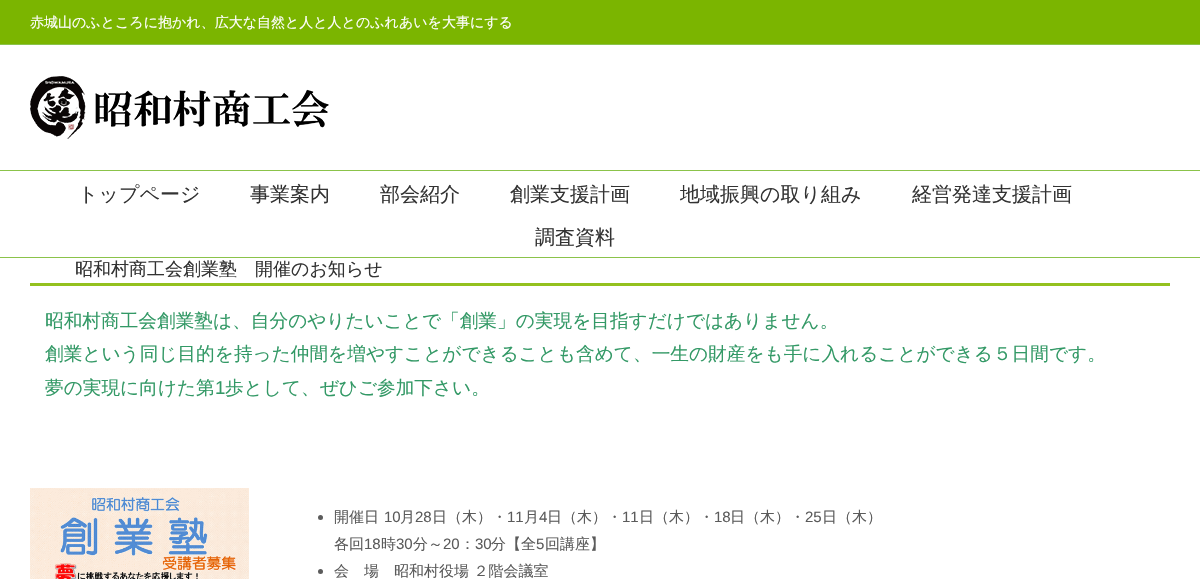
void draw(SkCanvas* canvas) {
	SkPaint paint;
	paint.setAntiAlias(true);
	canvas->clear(0xffffffff);
	paint.setColor(0xff7bb500);
	canvas->drawRect(SkRect::MakeXYWH(0, 0, 1200, 44), paint);
	paint.setColor(0xff8bc34a);
	canvas->drawRect(SkRect::MakeXYWH(0, 44, 1200, 1), paint);
	SkFont f1(fontMgr->matchFamilyStyle("WenQuanYi Zen Hei", SkFontStyle(500, SkFontStyle::kNormal_Width, SkFontStyle::kUpright_Slant)), 14);
	f1.setSubpixel(true);
	paint.setColor(0xffffffff);
	canvas->drawString("赤城山のふところに抱かれ、広大な自然と人と人とのふれあいを大事にする", 30, 27, f1, paint);
	paint.setColor(0xff8bc34a);
	canvas->drawRect(SkRect::MakeXYWH(0, 170, 1200, 1), paint);
	canvas->drawImageRect(SkImages::DeferredFromEncodedData(SkData::MakeFromFileName("img1.png")), SkRect::MakeXYWH(30, 76, 299, 63), SkSamplingOptions());
	canvas->drawRect(SkRect::MakeXYWH(0, 257, 1200, 1), paint);
	SkFont f2(fontMgr->matchFamilyStyle("WenQuanYi Zen Hei", SkFontStyle(500, SkFontStyle::kNormal_Width, SkFontStyle::kUpright_Slant)), 20);
	f2.setSubpixel(true);
	paint.setColor(0xff333333);
	canvas->drawString("トップページ", 78, 201, f2, paint);
	canvas->drawString("事業案内", 250, 201, f2, paint);
	canvas->drawString("部会紹介", 380, 201, f2, paint);
	canvas->drawString("創業支援計画", 510, 201, f2, paint);
	canvas->drawString("地域振興の取り組み", 680, 201, f2, paint);
	canvas->drawString("経営発達支援計画", 912, 201, f2, paint);
	canvas->drawString("調査資料", 535, 244, f2, paint);
	paint.setColor(0xff94c11f);
	canvas->drawRect(SkRect::MakeXYWH(30, 283, 1140, 3), paint);
	SkFont f3(fontMgr->matchFamilyStyle("WenQuanYi Zen Hei", SkFontStyle(500, SkFontStyle::kNormal_Width, SkFontStyle::kUpright_Slant)), 18);
	f3.setSubpixel(true);
	paint.setColor(0xff333333);
	canvas->drawString("昭和村商工会創業塾　開催のお知らせ", 75, 275, f3, paint);
	SkFont f4(fontMgr->matchFamilyStyle("WenQuanYi Zen Hei", SkFontStyle(500, SkFontStyle::kNormal_Width, SkFontStyle::kUpright_Slant)), 18.67);
	f4.setSubpixel(true);
	paint.setColor(0xff339966);
	canvas->drawString("昭和村商工会創業塾は、自分のやりたいことで「創業」の実現を目指すだけではありません。", 45, 327, f4, paint);
	canvas->drawString("創業という同じ目的を持った仲間を増やすことができることも含めて、一生の財産をも手に入れることができる５日間です。", 45, 360, f4, paint);
	canvas->drawString("夢の実現に向けた第", 45, 394, f4, paint);
	SkFont f5(fontMgr->matchFamilyStyle("Liberation Sans", SkFontStyle::Normal()), 18.67);
	f5.setSubpixel(true);
	canvas->drawString("1", 215, 394, f5, paint);
	canvas->drawString("歩として、ぜひご参加下さい。", 225, 394, f4, paint);
	canvas->drawImageRect(SkImages::DeferredFromEncodedData(SkData::MakeFromFileName("img2.png")), SkRect::MakeXYWH(30, 488, 219, 91), SkSamplingOptions());
	paint.setColor(0xff5b5b5b);
	canvas->drawCircle(320.5, 517.5, 2.5, paint);
	SkFont f6(fontMgr->matchFamilyStyle("WenQuanYi Zen Hei", SkFontStyle(500, SkFontStyle::kNormal_Width, SkFontStyle::kUpright_Slant)), 15);
	f6.setSubpixel(true);
	canvas->drawString("開催日", 334, 522, f6, paint);
	SkFont f7(fontMgr->matchFamilyStyle("Liberation Sans", SkFontStyle::Normal()), 15);
	f7.setSubpixel(true);
	canvas->drawString("10", 384, 522, f7, paint);
	canvas->drawString("月", 400, 522, f6, paint);
	canvas->drawString("28", 415, 522, f7, paint);
	canvas->drawString("日（木）・", 432, 522, f6, paint);
	canvas->drawString("11", 507, 522, f7, paint);
	canvas->drawString("月", 524, 522, f6, paint);
	canvas->drawString("4", 539, 522, f7, paint);
	canvas->drawString("日（木）・", 547, 522, f6, paint);
	canvas->drawString("11", 622, 522, f7, paint);
	canvas->drawString("日（木）・", 639, 522, f6, paint);
	canvas->drawString("18", 714, 522, f7, paint);
	canvas->drawString("日（木）・", 730, 522, f6, paint);
	canvas->drawString("25", 805, 522, f7, paint);
	canvas->drawString("日（木）", 822, 522, f6, paint);
	canvas->drawString("各回", 334, 549, f6, paint);
	canvas->drawString("18", 364, 549, f7, paint);
	canvas->drawString("時", 381, 549, f6, paint);
	canvas->drawString("30", 396, 549, f7, paint);
	canvas->drawString("分～", 413, 549, f6, paint);
	canvas->drawString("20", 443, 549, f7, paint);
	canvas->drawString("：", 460, 549, f6, paint);
	canvas->drawString("30", 475, 549, f7, paint);
	canvas->drawString("分【全", 491, 549, f6, paint);
	canvas->drawString("5", 536, 549, f7, paint);
	canvas->drawString("回講座】", 545, 549, f6, paint);
	canvas->drawCircle(320.5, 571.5, 2.5, paint);
	canvas->drawString("会　場　昭和村役場 ２階会議室", 334, 576, f6, paint);
}
